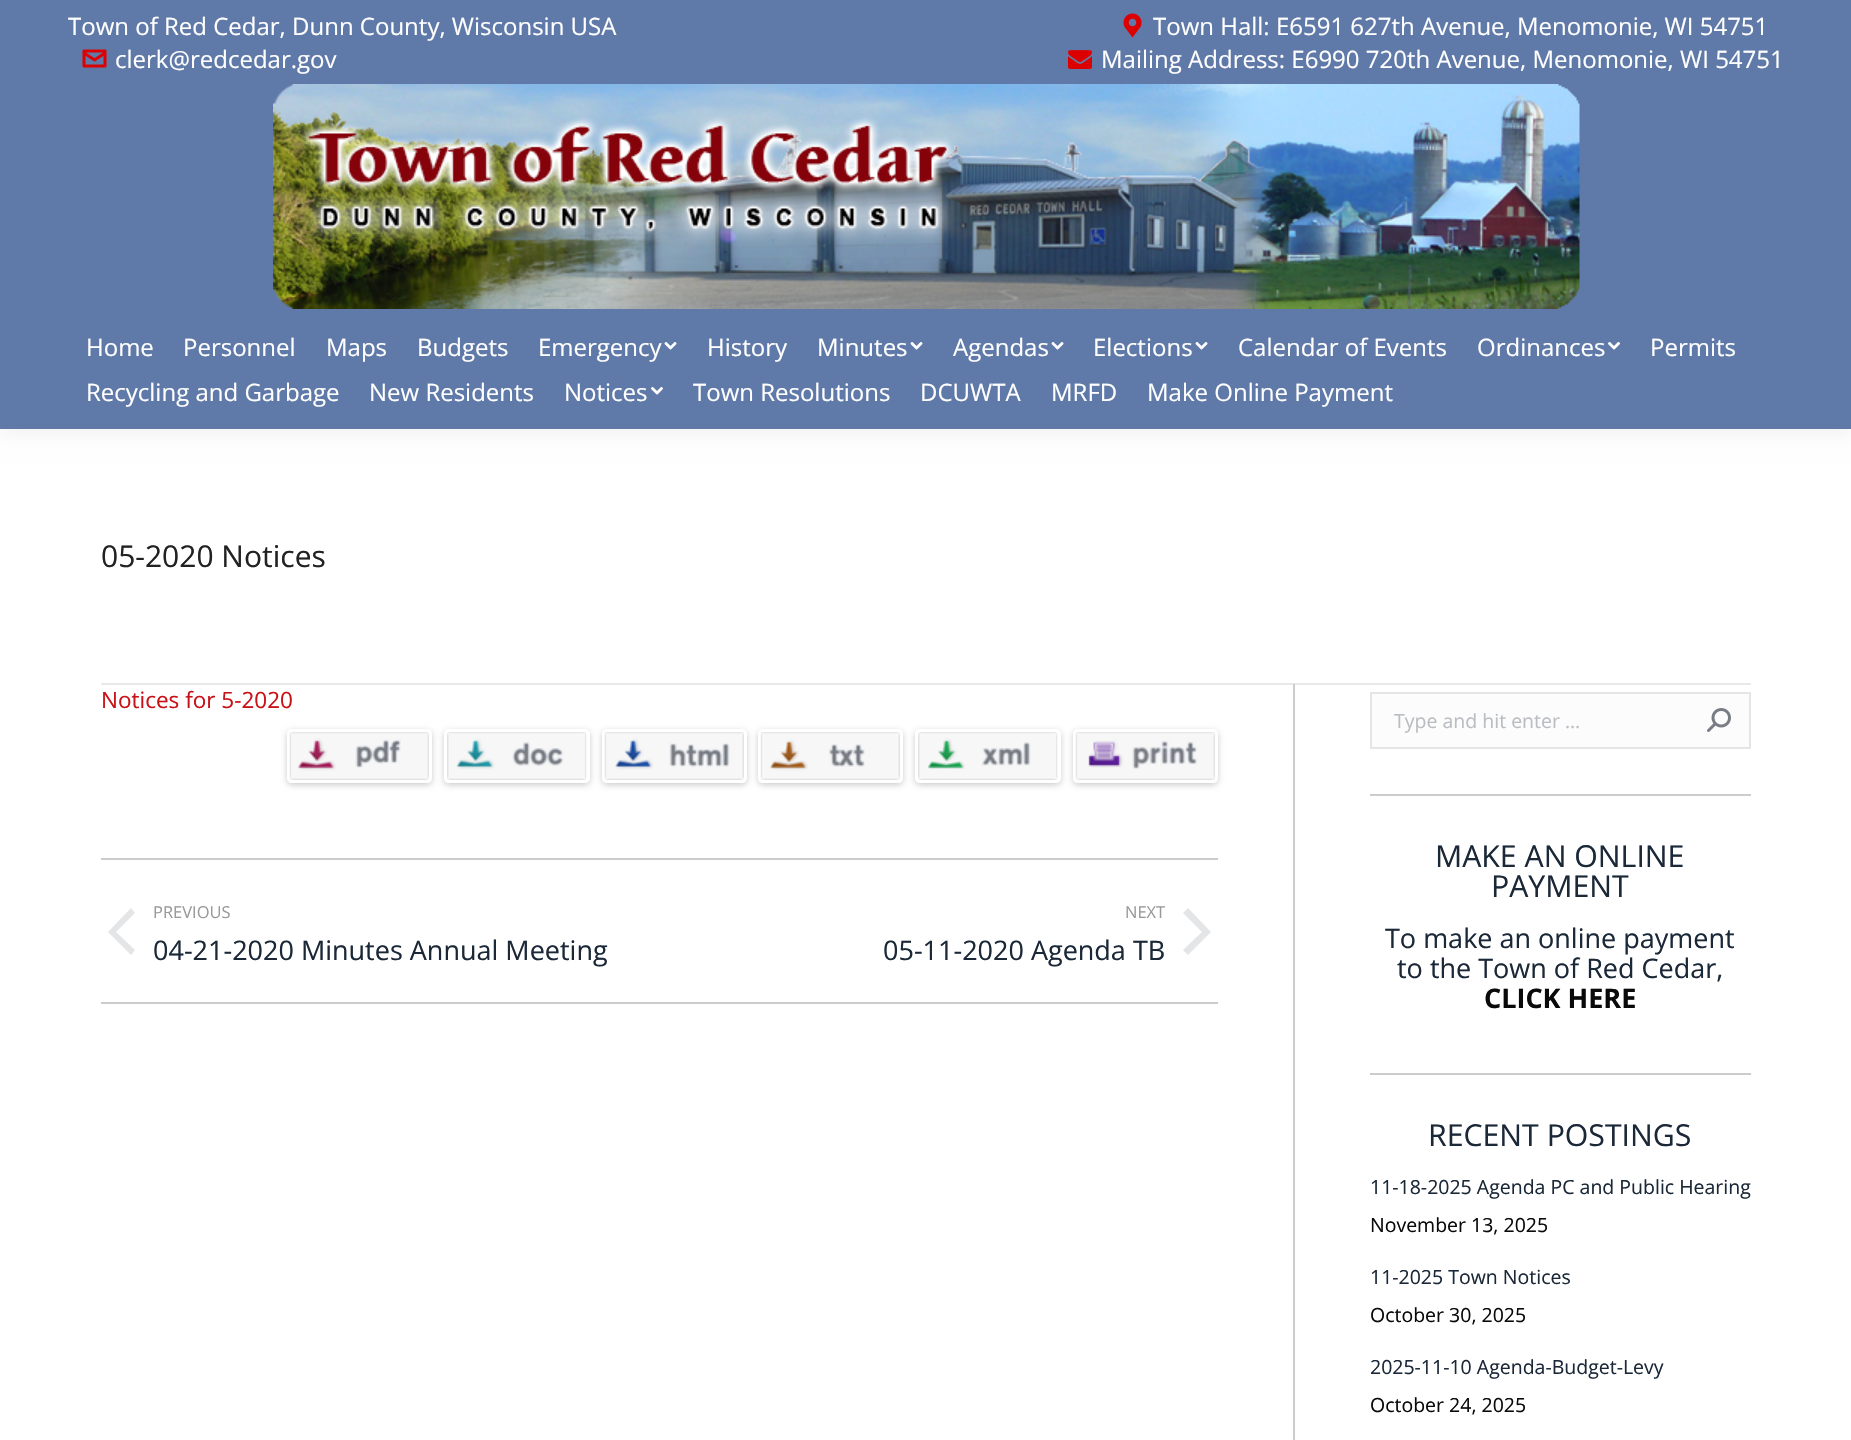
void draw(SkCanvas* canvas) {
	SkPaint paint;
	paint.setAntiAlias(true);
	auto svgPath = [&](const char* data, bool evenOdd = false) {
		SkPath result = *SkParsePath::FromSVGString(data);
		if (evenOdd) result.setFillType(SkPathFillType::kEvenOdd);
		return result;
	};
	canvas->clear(0xffffffff);
	paint.setColor(0x12000000);
	paint.setMaskFilter(SkMaskFilter::MakeBlur(kNormal_SkBlurStyle, 11));
	canvas->drawRect(SkRect::MakeXYWH(-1, -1, 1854, 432), paint);
	paint.setMaskFilter(nullptr);
	paint.setColor(0xff5f79a8);
	canvas->drawRect(SkRect::MakeXYWH(0, 0, 1851, 429), paint);
	SkFont f1(fontMgr->matchFamilyStyle("Open Sans", SkFontStyle::Normal()), 24);
	f1.setSubpixel(true);
	paint.setColor(0xffffffff);
	canvas->drawString("Town of Red Cedar, Dunn County, Wisconsin USA", 68, 35, f1, paint);
	canvas->drawImageRect(SkImages::DeferredFromEncodedData(SkData::MakeFromFileName("img1.png")), SkRect::MakeXYWH(82, 49, 25, 19), SkSamplingOptions());
	canvas->drawString("clerk@redcedar.gov", 115, 68, f1, paint);
	canvas->drawImageRect(SkImages::DeferredFromEncodedData(SkData::MakeFromFileName("img2.png")), SkRect::MakeXYWH(1123, 13, 19, 25), SkSamplingOptions());
	canvas->drawString("Town Hall: E6591 627th Avenue, Menomonie, WI 54751", 1153, 35, f1, paint);
	canvas->drawImageRect(SkImages::DeferredFromEncodedData(SkData::MakeFromFileName("img3.png")), SkRect::MakeXYWH(1068, 50, 24, 19), SkSamplingOptions());
	canvas->drawString("Mailing Address: E6990 720th Avenue, Menomonie, WI 54751", 1101, 68, f1, paint);
	canvas->drawImageRect(SkImages::DeferredFromEncodedData(SkData::MakeFromFileName("img4.png")), SkRect::MakeXYWH(273, 84, 1307, 225), SkSamplingOptions());
	canvas->drawString("Home", 86, 356, f1, paint);
	canvas->drawString("Personnel", 183, 356, f1, paint);
	canvas->drawString("Maps", 326, 356, f1, paint);
	canvas->drawString("Budgets", 417, 356, f1, paint);
	canvas->drawString("Emergency", 538, 356, f1, paint);
	canvas->drawImageRect(SkImages::DeferredFromEncodedData(SkData::MakeFromFileName("img5.png")), SkRect::MakeXYWH(664, 342, 13, 8), SkSamplingOptions());
	canvas->drawString("History", 707, 356, f1, paint);
	canvas->drawString("Minutes", 817, 356, f1, paint);
	canvas->drawImageRect(SkImages::DeferredFromEncodedData(SkData::MakeFromFileName("img5.png")), SkRect::MakeXYWH(910, 342, 13, 8), SkSamplingOptions());
	canvas->drawString("Agendas", 953, 356, f1, paint);
	canvas->drawImageRect(SkImages::DeferredFromEncodedData(SkData::MakeFromFileName("img5.png")), SkRect::MakeXYWH(1051, 342, 13, 8), SkSamplingOptions());
	canvas->drawString("Elections", 1093, 356, f1, paint);
	canvas->drawImageRect(SkImages::DeferredFromEncodedData(SkData::MakeFromFileName("img5.png")), SkRect::MakeXYWH(1195, 342, 13, 8), SkSamplingOptions());
	canvas->drawString("Calendar of Events", 1238, 356, f1, paint);
	canvas->drawString("Ordinances", 1477, 356, f1, paint);
	canvas->drawImageRect(SkImages::DeferredFromEncodedData(SkData::MakeFromFileName("img6.png")), SkRect::MakeXYWH(1608, 342, 12, 8), SkSamplingOptions());
	canvas->drawString("Permits", 1650, 356, f1, paint);
	canvas->drawString("Recycling and Garbage", 86, 401, f1, paint);
	canvas->drawString("New Residents", 369, 401, f1, paint);
	canvas->drawString("Notices", 564, 401, f1, paint);
	canvas->drawImageRect(SkImages::DeferredFromEncodedData(SkData::MakeFromFileName("img6.png")), SkRect::MakeXYWH(651, 387, 12, 8), SkSamplingOptions());
	canvas->drawString("Town Resolutions", 693, 401, f1, paint);
	canvas->drawString("DCUWTA", 920, 401, f1, paint);
	canvas->drawString("MRFD", 1051, 401, f1, paint);
	canvas->drawString("Make Online Payment", 1147, 401, f1, paint);
	SkFont f2(fontMgr->matchFamilyStyle("Open Sans", SkFontStyle::Normal()), 30);
	f2.setSubpixel(true);
	paint.setColor(0xff222222);
	canvas->drawString("05-2020 Notices", 101, 567, f2, paint);
	paint.setColor(0xffe9e9e9);
	canvas->drawRect(SkRect::MakeXYWH(101, 683, 1650, 2), paint);
	SkFont f3(fontMgr->matchFamilyStyle("Open Sans", SkFontStyle::Normal()), 22.5);
	f3.setSubpixel(true);
	paint.setColor(0xffc91217);
	canvas->drawString("Notices for 5-2020", 101, 708, f3, paint);
	canvas->save();
	canvas->clipPath(svgPath("M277 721H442V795H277ZM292 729H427C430 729 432 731 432 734V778C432 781 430 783 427 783H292C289 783 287 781 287 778V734C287 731 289 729 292 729Z", true), true);
	paint.setColor(0x33000000);
	paint.setMaskFilter(SkMaskFilter::MakeBlur(kNormal_SkBlurStyle, 3));
	canvas->drawRoundRect(SkRect::MakeXYWH(287, 731, 145, 54), 5, 5, paint);
	paint.setMaskFilter(nullptr);
	canvas->restore();
	canvas->save();
	canvas->clipPath(svgPath("M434 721H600V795H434ZM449 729H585C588 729 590 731 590 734V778C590 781 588 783 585 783H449C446 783 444 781 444 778V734C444 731 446 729 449 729Z", true), true);
	paint.setMaskFilter(SkMaskFilter::MakeBlur(kNormal_SkBlurStyle, 3));
	canvas->drawRoundRect(SkRect::MakeXYWH(444, 731, 146, 54), 5, 5, paint);
	paint.setMaskFilter(nullptr);
	canvas->restore();
	canvas->save();
	canvas->clipPath(svgPath("M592 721H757V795H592ZM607 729H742C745 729 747 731 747 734V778C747 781 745 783 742 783H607C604 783 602 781 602 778V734C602 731 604 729 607 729Z", true), true);
	paint.setMaskFilter(SkMaskFilter::MakeBlur(kNormal_SkBlurStyle, 3));
	canvas->drawRoundRect(SkRect::MakeXYWH(602, 731, 145, 54), 5, 5, paint);
	paint.setMaskFilter(nullptr);
	canvas->restore();
	canvas->save();
	canvas->clipPath(svgPath("M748 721H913V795H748ZM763 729H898C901 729 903 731 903 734V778C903 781 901 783 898 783H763C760 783 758 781 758 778V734C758 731 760 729 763 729Z", true), true);
	paint.setMaskFilter(SkMaskFilter::MakeBlur(kNormal_SkBlurStyle, 3));
	canvas->drawRoundRect(SkRect::MakeXYWH(758, 731, 145, 54), 5, 5, paint);
	paint.setMaskFilter(nullptr);
	canvas->restore();
	canvas->save();
	canvas->clipPath(svgPath("M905 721H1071V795H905ZM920 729H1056C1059 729 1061 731 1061 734V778C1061 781 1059 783 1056 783H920C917 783 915 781 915 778V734C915 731 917 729 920 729Z", true), true);
	paint.setMaskFilter(SkMaskFilter::MakeBlur(kNormal_SkBlurStyle, 3));
	canvas->drawRoundRect(SkRect::MakeXYWH(915, 731, 146, 54), 5, 5, paint);
	paint.setMaskFilter(nullptr);
	canvas->restore();
	canvas->save();
	canvas->clipPath(svgPath("M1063 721H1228V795H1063ZM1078 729H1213C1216 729 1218 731 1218 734V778C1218 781 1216 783 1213 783H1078C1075 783 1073 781 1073 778V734C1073 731 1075 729 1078 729Z", true), true);
	paint.setMaskFilter(SkMaskFilter::MakeBlur(kNormal_SkBlurStyle, 3));
	canvas->drawRoundRect(SkRect::MakeXYWH(1073, 731, 145, 54), 5, 5, paint);
	paint.setMaskFilter(nullptr);
	canvas->restore();
	canvas->drawImageRect(SkImages::DeferredFromEncodedData(SkData::MakeFromFileName("img7.png")), SkRect::MakeXYWH(289, 732, 140, 48), SkSamplingOptions());
	canvas->drawImageRect(SkImages::DeferredFromEncodedData(SkData::MakeFromFileName("img8.png")), SkRect::MakeXYWH(447, 732, 140, 48), SkSamplingOptions());
	canvas->drawImageRect(SkImages::DeferredFromEncodedData(SkData::MakeFromFileName("img9.png")), SkRect::MakeXYWH(604, 732, 140, 48), SkSamplingOptions());
	canvas->drawImageRect(SkImages::DeferredFromEncodedData(SkData::MakeFromFileName("img10.png")), SkRect::MakeXYWH(760, 732, 140, 48), SkSamplingOptions());
	canvas->drawImageRect(SkImages::DeferredFromEncodedData(SkData::MakeFromFileName("img11.png")), SkRect::MakeXYWH(918, 732, 140, 48), SkSamplingOptions());
	canvas->drawImageRect(SkImages::DeferredFromEncodedData(SkData::MakeFromFileName("img12.png")), SkRect::MakeXYWH(1075, 732, 140, 48), SkSamplingOptions());
	paint.setColor(0xffcccccc);
	canvas->drawRect(SkRect::MakeXYWH(101, 858, 1117, 2), paint);
	canvas->drawRect(SkRect::MakeXYWH(101, 1002, 1117, 2), paint);
	paint.setColor(0xffe4e5e7);
	canvas->drawPath(svgPath("M116 932L135 913L131 908L108 932L131 955L135 950Z"), paint);
	SkFont f4(fontMgr->matchFamilyStyle("Open Sans", SkFontStyle::Normal()), 16.5);
	f4.setSubpixel(true);
	paint.setColor(0xff999999);
	canvas->drawString("PREVIOUS", 153, 918, f4, paint);
	SkFont f5(fontMgr->matchFamilyStyle("Open Sans", SkFontStyle::Normal()), 27);
	f5.setSubpixel(true);
	paint.setColor(0xff1b2838);
	canvas->drawString("04-21-2020 Minutes Annual Meeting", 153, 960, f5, paint);
	paint.setColor(0xff999999);
	canvas->drawString("NEXT", 1125, 918, f4, paint);
	paint.setColor(0xffe4e5e7);
	canvas->drawPath(svgPath("M1202 932L1183 913L1188 908L1211 932L1188 955L1183 950Z"), paint);
	paint.setColor(0xff1b2838);
	canvas->drawString("05-11-2020 Agenda TB", 883, 960, f5, paint);
	paint.setColor(0xffcccccc);
	canvas->drawRect(SkRect::MakeXYWH(1293, 684, 2, 756), paint);
	paint.setColor(0xfffcfcfc);
	canvas->drawRect(SkRect::MakeXYWH(1371, 693, 379, 55), paint);
	paint.setStroke(true);
	paint.setStrokeWidth(2);
	paint.setColor(0xffe4e5e7);
	canvas->drawRect(SkRect::MakeXYWH(1371, 693, 379, 55), paint);
	SkFont f6(fontMgr->matchFamilyStyle("Open Sans", SkFontStyle::Normal()), 19.5);
	f6.setSubpixel(true);
	paint.setStroke(false);
	paint.setColor(0xffbabdc1);
	canvas->drawString("Type and hit enter …", 1394, 728, f6, paint);
	canvas->drawImageRect(SkImages::DeferredFromEncodedData(SkData::MakeFromFileName("img13.png")), SkRect::MakeXYWH(1707, 708, 24, 24), SkSamplingOptions());
	paint.setColor(0xffcccccc);
	canvas->drawRect(SkRect::MakeXYWH(1370, 794, 381, 2), paint);
	SkFont f7(fontMgr->matchFamilyStyle("Open Sans", SkFontStyle::Normal()), 30.25);
	f7.setSubpixel(true);
	paint.setColor(0xff1b2838);
	canvas->drawString("MAKE AN ONLINE", 1435, 867, f7, paint);
	canvas->drawString("PAYMENT", 1491, 897, f7, paint);
	canvas->drawString("To make an online payment", 1385, 948, f5, paint);
	canvas->drawString("to the Town of Red Cedar,", 1397, 978, f5, paint);
	SkFont f8(fontMgr->matchFamilyStyle("Open Sans", SkFontStyle::Bold()), 27);
	f8.setSubpixel(true);
	paint.setColor(0xff0a0a0a);
	canvas->drawString("CLICK HERE", 1484, 1008, f8, paint);
	paint.setColor(0xffcccccc);
	canvas->drawRect(SkRect::MakeXYWH(1370, 1073, 381, 2), paint);
	paint.setColor(0xff1b2838);
	canvas->drawString("RECENT POSTINGS", 1428, 1146, f7, paint);
	canvas->drawString("11-18-2025 Agenda PC and Public Hearing", 1370, 1194, f6, paint);
	paint.setColor(0xff0a0a0a);
	canvas->drawString("November 13, 2025", 1370, 1232, f6, paint);
	paint.setColor(0xff1b2838);
	canvas->drawString("11-2025 Town Notices", 1370, 1284, f6, paint);
	paint.setColor(0xff0a0a0a);
	canvas->drawString("October 30, 2025", 1370, 1322, f6, paint);
	paint.setColor(0xff1b2838);
	canvas->drawString("2025-11-10 Agenda-Budget-Levy", 1370, 1374, f6, paint);
	paint.setColor(0xff0a0a0a);
	canvas->drawString("October 24, 2025", 1370, 1412, f6, paint);
}
